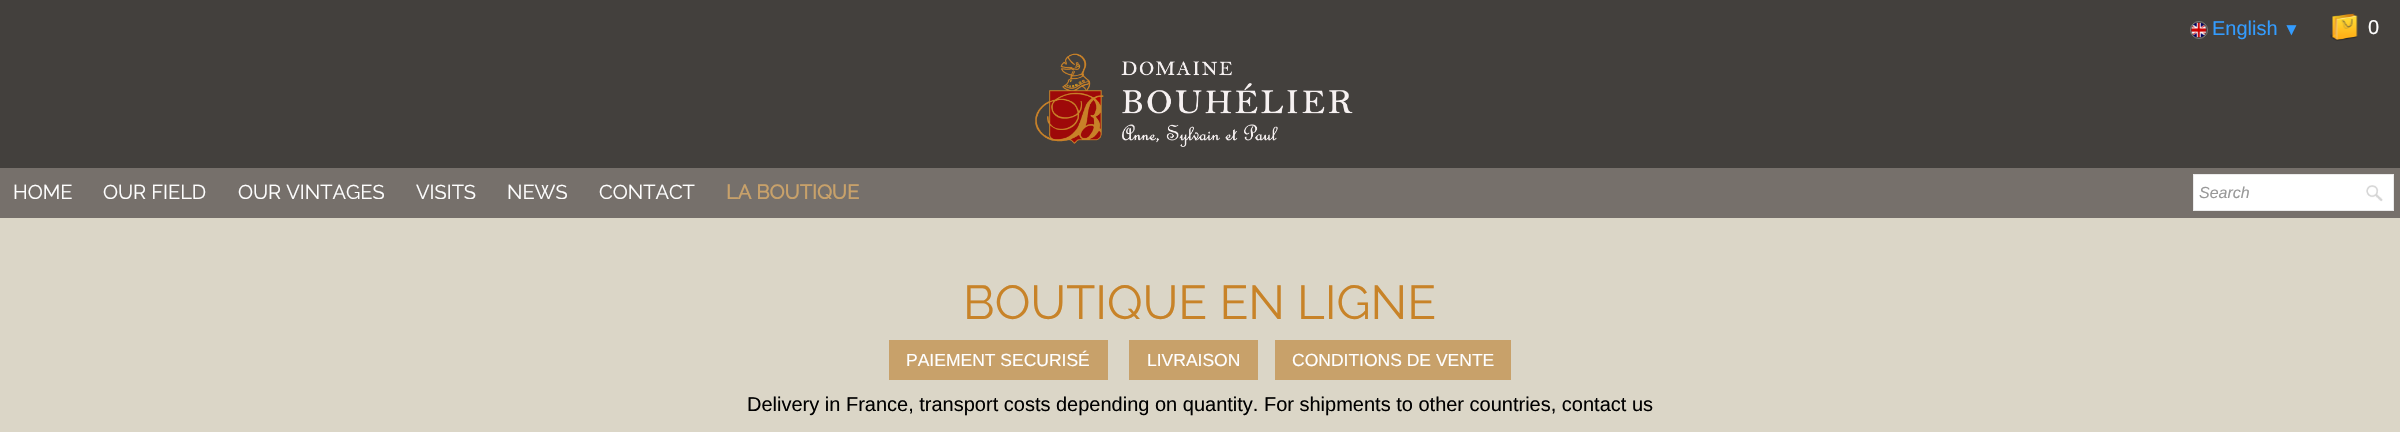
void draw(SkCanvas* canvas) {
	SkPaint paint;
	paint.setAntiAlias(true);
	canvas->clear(0xff43403d);
	paint.setStroke(true);
	paint.setStrokeWidth(1);
	paint.setColor(0xff787878);
	canvas->drawCircle(2199, 30, 8.5, paint);
	canvas->drawImageRect(SkImages::DeferredFromEncodedData(SkData::MakeFromFileName("img1.png")), SkRect::MakeXYWH(2190, 22, 17, 16), SkSamplingOptions());
	SkFont f1(fontMgr->matchFamilyStyle("Liberation Sans", SkFontStyle::Normal()), 20);
	f1.setSubpixel(true);
	paint.setStroke(false);
	paint.setColor(0xff339cff);
	canvas->drawString("English", 2212, 35, f1, paint);
	SkFont f2(fontMgr->matchFamilyStyle("Liberation Sans", SkFontStyle::Normal()), 17);
	f2.setSubpixel(true);
	canvas->drawString("▼", 2283, 35, f2, paint);
	canvas->drawImageRect(SkImages::DeferredFromEncodedData(SkData::MakeFromFileName("img2.png")), SkRect::MakeXYWH(2330, 13, 28, 28), SkSamplingOptions());
	paint.setColor(0xffffffff);
	canvas->drawString("0", 2368, 34, f1, paint);
	canvas->drawImageRect(SkImages::DeferredFromEncodedData(SkData::MakeFromFileName("img3.png")), SkRect::MakeXYWH(1035, 53, 318, 94), SkSamplingOptions());
	paint.setColor(0xff76706b);
	canvas->drawRect(SkRect::MakeXYWH(0, 168, 2400, 50), paint);
	SkFont f3(fontMgr->matchFamilyStyle("Raleway", SkFontStyle(100, SkFontStyle::kNormal_Width, SkFontStyle::kUpright_Slant)), 20);
	f3.setSubpixel(true);
	paint.setColor(0xffffffff);
	canvas->drawString("HOME", 13, 199, f3, paint);
	canvas->drawString("OUR FIELD", 103, 199, f3, paint);
	canvas->drawString("OUR VINTAGES", 238, 199, f3, paint);
	canvas->drawString("VISITS", 416, 199, f3, paint);
	canvas->drawString("NEWS", 507, 199, f3, paint);
	canvas->drawString("CONTACT", 599, 199, f3, paint);
	SkFont f4(fontMgr->matchFamilyStyle("Raleway", SkFontStyle::Bold()), 20);
	f4.setSubpixel(true);
	paint.setColor(0xffc8a16a);
	canvas->drawString("LA BOUTIQUE", 726, 199, f4, paint);
	paint.setColor(0xffffffff);
	canvas->drawRect(SkRect::MakeXYWH(2194, 175, 199, 35), paint);
	canvas->drawImageRect(SkImages::DeferredFromEncodedData(SkData::MakeFromFileName("img4.png")), SkRect::MakeXYWH(2366, 185, 17, 17), SkSamplingOptions());
	paint.setStroke(true);
	paint.setColor(0xffebebeb);
	canvas->drawRect(SkRect::MakeXYWH(2193.5, 174.5, 200, 36), paint);
	SkFont f5(fontMgr->matchFamilyStyle("Liberation Sans", SkFontStyle::Italic()), 16);
	f5.setSubpixel(true);
	paint.setStroke(false);
	paint.setColor(0xff999999);
	canvas->drawString("Search", 2199, 198, f5, paint);
	paint.setColor(0xffdbd6c7);
	canvas->drawRect(SkRect::MakeXYWH(0, 218, 2400, 214), paint);
	SkFont f6(fontMgr->matchFamilyStyle("Raleway", SkFontStyle(100, SkFontStyle::kNormal_Width, SkFontStyle::kUpright_Slant)), 47.5);
	f6.setSubpixel(true);
	paint.setColor(0xffc88328);
	canvas->drawString("BOUTIQUE EN LIGNE", 963, 319, f6, paint);
	paint.setColor(0xffc8a16a);
	canvas->drawRect(SkRect::MakeXYWH(889, 340, 219, 40), paint);
	SkFont f7(fontMgr->matchFamilyStyle("Liberation Sans", SkFontStyle::Normal()), 17.5);
	f7.setSubpixel(true);
	paint.setColor(0xffffffff);
	canvas->drawString("PAIEMENT SECURISÉ", 906, 366, f7, paint);
	paint.setColor(0xffc8a16a);
	canvas->drawRect(SkRect::MakeXYWH(1129, 340, 129, 40), paint);
	paint.setColor(0xffffffff);
	canvas->drawString("LIVRAISON", 1147, 366, f7, paint);
	paint.setColor(0xffc8a16a);
	canvas->drawRect(SkRect::MakeXYWH(1275, 340, 236, 40), paint);
	paint.setColor(0xffffffff);
	canvas->drawString("CONDITIONS DE VENTE", 1292, 366, f7, paint);
	paint.setColor(0xff000000);
	canvas->drawString("Delivery in France, transport costs depending on quantity. For shipments to other countries, contact us", 747, 411, f1, paint);
}
